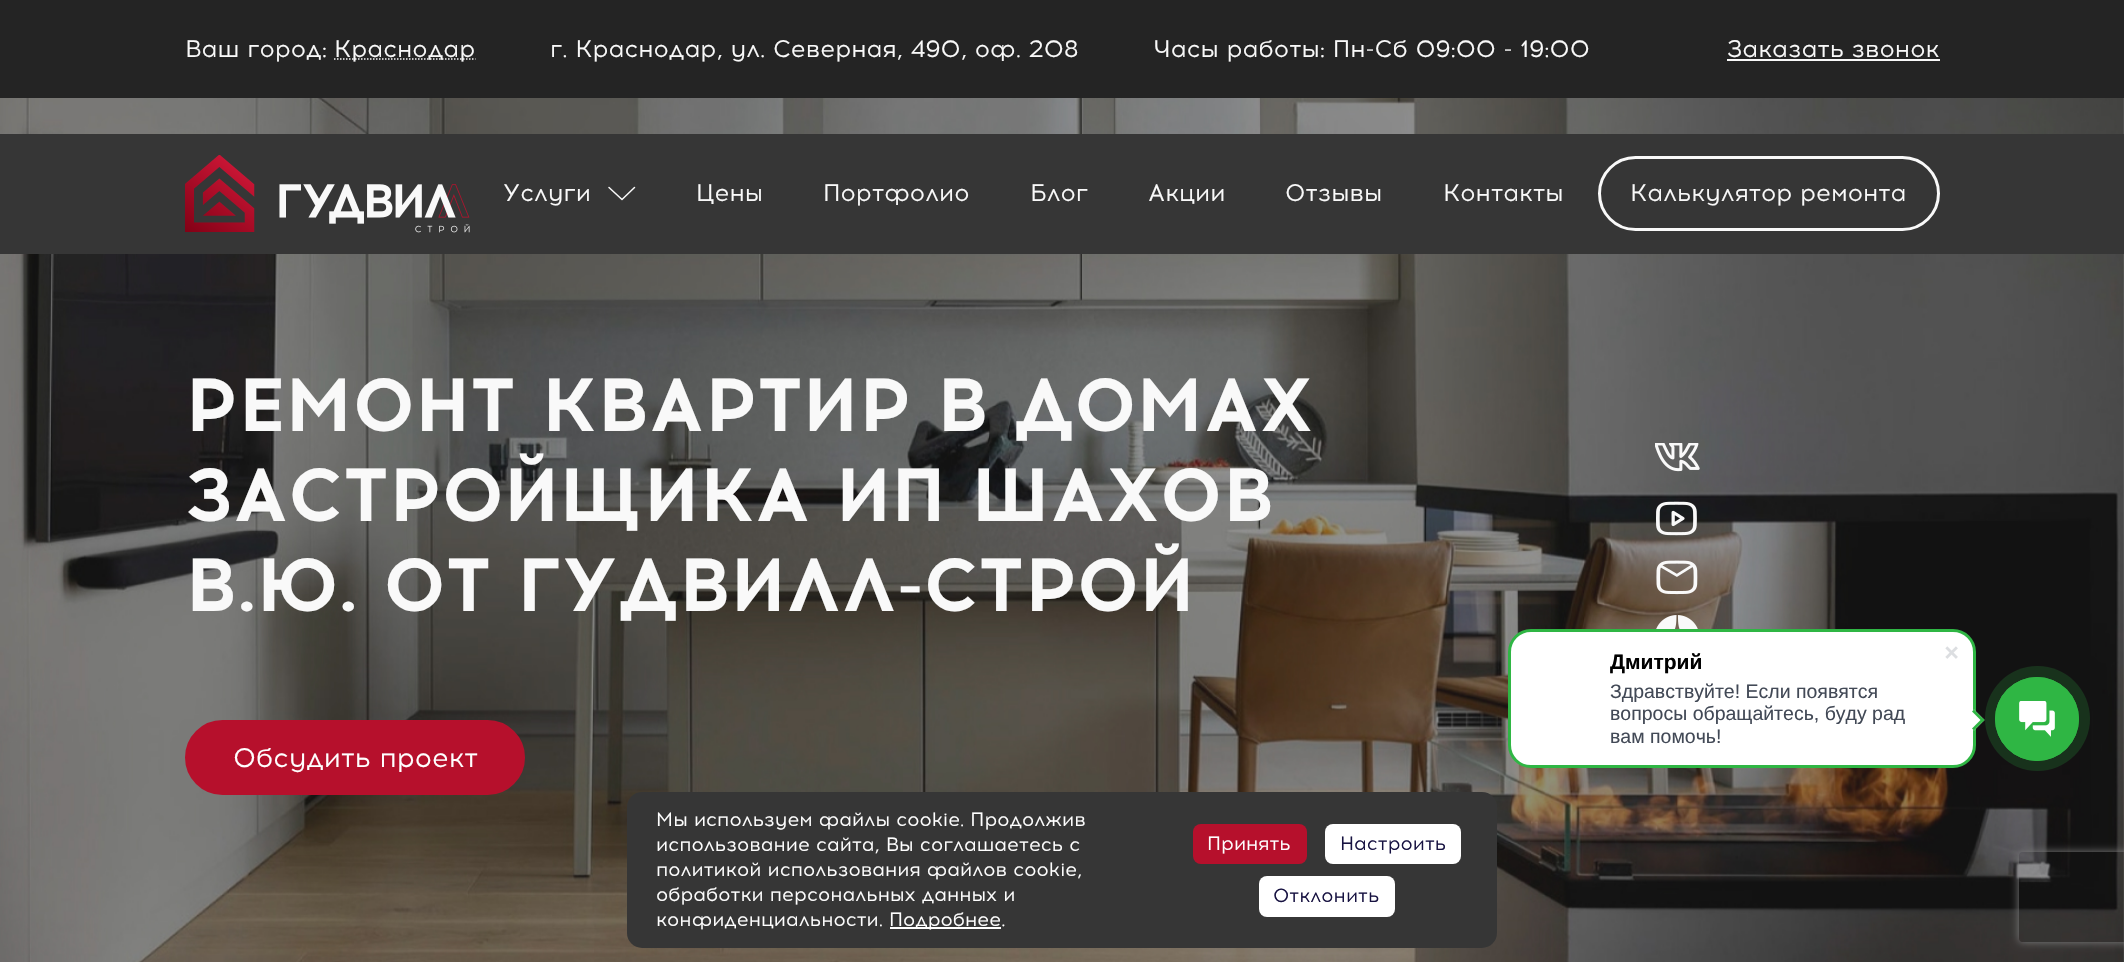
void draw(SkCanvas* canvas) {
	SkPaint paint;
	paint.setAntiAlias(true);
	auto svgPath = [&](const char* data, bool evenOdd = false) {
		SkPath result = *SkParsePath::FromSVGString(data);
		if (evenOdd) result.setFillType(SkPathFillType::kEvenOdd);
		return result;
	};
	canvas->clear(0xffffffff);
	paint.setColor(0xff242424);
	canvas->drawRect(SkRect::MakeXYWH(0, 0, 2124, 98), paint);
	SkFont f1(fontMgr->matchFamilyStyle("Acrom", SkFontStyle::Normal()), 24);
	f1.setSubpixel(true);
	paint.setColor(0xfff9f9f9);
	canvas->drawString("Ваш город:", 185, 57, f1, paint);
	paint.setStroke(true);
	paint.setStrokeWidth(1.5);
	paint.setPathEffect(SkDashPathEffect::Make({{1.5f, 1.5f}}, 0));
	canvas->drawPath(svgPath("M334 59H475.5"), paint);
	paint.setPathEffect(nullptr);
	paint.setStroke(false);
	canvas->drawString("Краснодар", 334, 57, f1, paint);
	canvas->drawString("г. Краснодар, ул. Северная, 490, оф. 208", 550, 57, f1, paint);
	canvas->drawString("Часы работы: Пн-Сб 09:00 - 19:00", 1154, 57, f1, paint);
	canvas->drawString("Заказать звонок", 1727, 57, f1, paint);
	canvas->drawRect(SkRect::MakeXYWH(1727, 59, 213, 2), paint);
	canvas->drawImageRect(SkImages::DeferredFromEncodedData(SkData::MakeFromFileName("img2.png")), SkRect::MakeXYWH(0, 98, 2124, 864), SkSamplingOptions());
	paint.setColor(0xff363636);
	canvas->drawRect(SkRect::MakeXYWH(0, 134, 2124, 120), paint);
	canvas->drawImageRect(SkImages::DeferredFromEncodedData(SkData::MakeFromFileName("img1.png")), SkRect::MakeXYWH(185, 155, 285, 78), SkSamplingOptions());
	paint.setStroke(true);
	paint.setStrokeCap(SkPaint::kRound_Cap);
	paint.setStrokeJoin(SkPaint::kRound_Join);
	paint.setColor(0xfff9f9f9);
	canvas->drawPath(svgPath("M634.5 187.5L622 199.5L609 187.5"), paint);
	paint.setStroke(false);
	canvas->drawString("Услуги", 503, 201, f1, paint);
	canvas->drawString("Цены", 696, 201, f1, paint);
	canvas->drawString("Портфолио", 823, 201, f1, paint);
	canvas->drawString("Блог", 1030, 201, f1, paint);
	canvas->drawString("Акции", 1148, 201, f1, paint);
	canvas->drawString("Отзывы", 1285, 201, f1, paint);
	canvas->drawString("Контакты", 1443, 201, f1, paint);
	paint.setStroke(true);
	paint.setStrokeWidth(3);
	paint.setStrokeCap(SkPaint::kButt_Cap);
	paint.setStrokeJoin(SkPaint::kMiter_Join);
	canvas->drawRoundRect(SkRect::MakeXYWH(1599.5, 157.5, 339, 72), 36, 36, paint);
	paint.setStroke(false);
	canvas->drawString("Калькулятор ремонта", 1630, 201, f1, paint);
	SkFont f2(fontMgr->matchFamilyStyle("Acrom", SkFontStyle::Bold()), 75);
	f2.setSubpixel(true);
	canvas->drawString("РЕМОНТ КВАРТИР В ДОМАХ", 185, 431, f2, paint);
	canvas->drawString("ЗАСТРОЙЩИКА ИП ШАХОВ", 185, 521, f2, paint);
	canvas->drawString("В.Ю. ОТ ГУДВИЛЛ-СТРОЙ", 185, 611, f2, paint);
	paint.setColor(0xffb6102c);
	canvas->drawRoundRect(SkRect::MakeXYWH(186.5, 721.5, 337, 72), 36, 36, paint);
	paint.setStroke(true);
	canvas->drawRoundRect(SkRect::MakeXYWH(186.5, 721.5, 337, 72), 36, 36, paint);
	SkFont f3(fontMgr->matchFamilyStyle("Acrom", SkFontStyle::Normal()), 27);
	f3.setSubpixel(true);
	paint.setStroke(false);
	paint.setColor(0xffffffff);
	canvas->drawString("Обсудить проект", 233, 767, f3, paint);
	canvas->drawImageRect(SkImages::DeferredFromEncodedData(SkData::MakeFromFileName("img3.png")), SkRect::MakeXYWH(1655, 443, 45, 29), SkSamplingOptions());
	canvas->drawImageRect(SkImages::DeferredFromEncodedData(SkData::MakeFromFileName("img4.png")), SkRect::MakeXYWH(1656, 501, 41, 35), SkSamplingOptions());
	canvas->drawImageRect(SkImages::DeferredFromEncodedData(SkData::MakeFromFileName("img5.png")), SkRect::MakeXYWH(1656, 560, 42, 35), SkSamplingOptions());
	canvas->drawImageRect(SkImages::DeferredFromEncodedData(SkData::MakeFromFileName("img6.png")), SkRect::MakeXYWH(1656, 615, 42, 14), SkSamplingOptions());
	paint.setColor(0xff363636);
	canvas->drawRoundRect(SkRect::MakeXYWH(627, 792, 870, 156), 15, 15, paint);
	SkFont f4(fontMgr->matchFamilyStyle("Acrom", SkFontStyle::Normal()), 19.2);
	f4.setSubpixel(true);
	paint.setColor(0xffffffff);
	canvas->drawString("Мы используем файлы cookie. Продолжив", 656, 826, f4, paint);
	canvas->drawString("использование сайта, Вы соглашаетесь с", 656, 851, f4, paint);
	canvas->drawString("политикой использования файлов cookie,", 656, 876, f4, paint);
	canvas->drawString("обработки персональных данных и", 656, 901, f4, paint);
	canvas->drawString("конфиденциальности.", 656, 926, f4, paint);
	canvas->drawRect(SkRect::MakeXYWH(890, 927, 111, 2), paint);
	canvas->drawString("Подробнее.", 889, 926, f4, paint);
	paint.setColor(0xffb6102c);
	canvas->drawRoundRect(SkRect::MakeXYWH(1193, 824, 114, 40), 8, 8, paint);
	paint.setColor(0xffffffff);
	canvas->drawString("Принять", 1207, 850, f4, paint);
	canvas->drawRoundRect(SkRect::MakeXYWH(1325, 824, 136, 40), 8, 8, paint);
	paint.setColor(0xff171241);
	canvas->drawString("Настроить", 1340, 850, f4, paint);
	paint.setColor(0xffffffff);
	canvas->drawRoundRect(SkRect::MakeXYWH(1259, 876, 136, 41), 8, 8, paint);
	paint.setColor(0xff171241);
	canvas->drawString("Отклонить", 1273, 902, f4, paint);
	paint.setColor(0xffffffff);
	canvas->drawRoundRect(SkRect::MakeXYWH(1509.5, 630.5, 465, 136), 21.5, 21.5, paint);
	paint.setStroke(true);
	paint.setColor(0xff2fb644);
	canvas->drawRoundRect(SkRect::MakeXYWH(1509.5, 630.5, 465, 136), 21.5, 21.5, paint);
	SkFont f5(fontMgr->matchFamilyStyle("Liberation Sans", SkFontStyle::Bold()), 21);
	f5.setSubpixel(true);
	paint.setStroke(false);
	paint.setColor(0xff000000);
	canvas->drawString("Дмитрий", 1610, 669, f5, paint);
	SkFont f6(fontMgr->matchFamilyStyle("Liberation Sans", SkFontStyle::Normal()), 19.5);
	f6.setSubpixel(true);
	paint.setColor(0xff424956);
	canvas->drawString("Здравствуйте! Если появятся", 1610, 698, f6, paint);
	canvas->drawString("вопросы обращайтесь, буду рад", 1610, 720, f6, paint);
	canvas->drawString("вам помочь!", 1610, 743, f6, paint);
	canvas->drawImageRect(SkImages::DeferredFromEncodedData(SkData::MakeFromFileName("img7.png")), SkRect::MakeXYWH(1945, 646, 13, 13), SkSamplingOptions());
	paint.setColor(0xffffffff);
	canvas->drawPath(svgPath("M1963.5 720L1974 709.5L1984.5 720L1974 730.5Z"), paint);
	paint.setColor(0xff2fb644);
	canvas->drawPath(svgPath("M1972 711.5L1974 709.5L1984.5 720L1982.5 722Z"), paint);
	canvas->drawPath(svgPath("M1972 728.5L1982.5 718L1984.5 720L1974 730.5Z"), paint);
	paint.setColor(0xff18321c);
	canvas->drawCircle(2037.5, 718.5, 52.5, paint);
	paint.setStroke(true);
	paint.setStrokeWidth(1);
	paint.setColor(0xff2fb644);
	canvas->drawCircle(2037, 719, 41.5, paint);
	paint.setStroke(false);
	canvas->drawCircle(2037, 719, 42, paint);
	canvas->drawImageRect(SkImages::DeferredFromEncodedData(SkData::MakeFromFileName("img8.png")), SkRect::MakeXYWH(2019, 701, 36, 36), SkSamplingOptions());
	canvas->save();
	canvas->clipPath(svgPath("M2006 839H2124V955H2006ZM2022 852H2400C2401.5 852 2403 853.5 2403 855V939C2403 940.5 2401.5 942 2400 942H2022C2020.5 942 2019 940.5 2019 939V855C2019 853.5 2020.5 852 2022 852Z", true), true);
	paint.setColor(0xff808080);
	paint.setMaskFilter(SkMaskFilter::MakeBlur(kNormal_SkBlurStyle, 4));
	canvas->drawRoundRect(SkRect::MakeXYWH(2019, 852, 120, 90), 3, 3, paint);
	paint.setMaskFilter(nullptr);
	canvas->restore();
}
